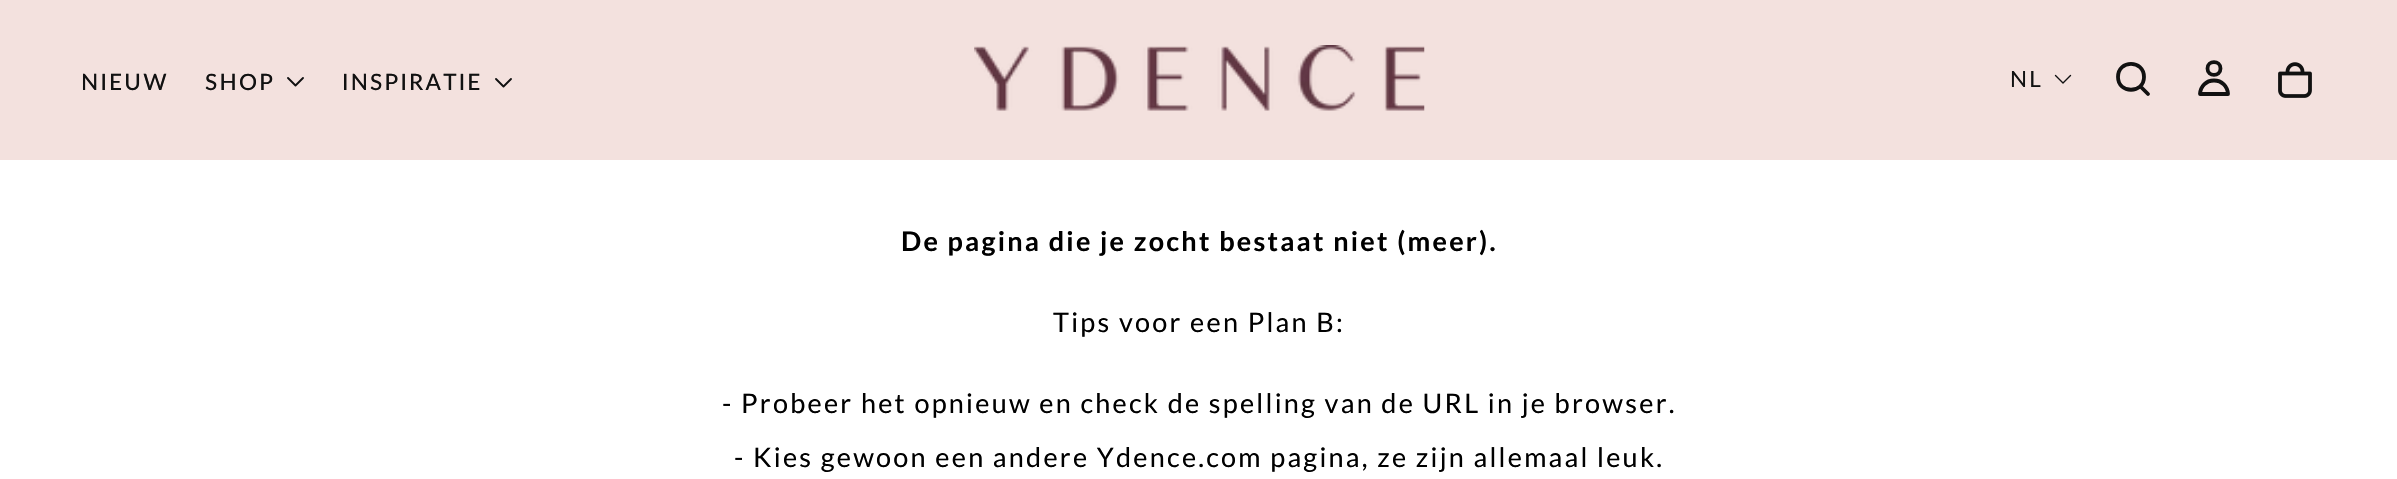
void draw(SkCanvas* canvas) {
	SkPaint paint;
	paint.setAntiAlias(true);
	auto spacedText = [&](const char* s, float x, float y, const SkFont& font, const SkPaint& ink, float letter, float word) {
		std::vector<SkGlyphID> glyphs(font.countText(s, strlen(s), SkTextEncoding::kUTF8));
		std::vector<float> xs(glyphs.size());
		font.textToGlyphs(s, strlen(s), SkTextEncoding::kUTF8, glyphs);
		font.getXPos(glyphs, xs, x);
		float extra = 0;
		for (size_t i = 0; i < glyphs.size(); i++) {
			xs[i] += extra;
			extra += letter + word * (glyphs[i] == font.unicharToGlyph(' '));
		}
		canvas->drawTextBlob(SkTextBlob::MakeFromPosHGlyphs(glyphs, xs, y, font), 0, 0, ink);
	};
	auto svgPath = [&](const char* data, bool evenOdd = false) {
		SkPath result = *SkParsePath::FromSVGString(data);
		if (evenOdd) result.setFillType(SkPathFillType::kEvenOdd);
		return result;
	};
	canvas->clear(0xffffffff);
	paint.setColor(0xfff3e1de);
	canvas->drawRect(SkRect::MakeXYWH(0, 0, 2397, 160), paint);
	SkFont f1(fontMgr->matchFamilyStyle("Lato", SkFontStyle(500, SkFontStyle::kNormal_Width, SkFontStyle::kUpright_Slant)), 22.5);
	f1.setSubpixel(true);
	paint.setColor(0xff111111);
	spacedText("NIEUW", 81, 90, f1, paint, 2.25, 0);
	spacedText("SHOP", 205, 90, f1, paint, 2.25, 0);
	paint.setStroke(true);
	paint.setStrokeWidth(1.9);
	paint.setStrokeCap(SkPaint::kRound_Cap);
	paint.setStrokeJoin(SkPaint::kRound_Join);
	canvas->drawPath(svgPath("M303 78L295.5 85.5L288 78"), paint);
	paint.setStroke(false);
	spacedText("INSPIRATIE", 342, 90, f1, paint, 2.25, 0);
	paint.setStroke(true);
	canvas->drawPath(svgPath("M511 79L503.5 86.5L496 79"), paint);
	canvas->drawImageRect(SkImages::DeferredFromEncodedData(SkData::MakeFromFileName("img1.png")), SkRect::MakeXYWH(974, 45, 451, 66), SkSamplingOptions());
	SkFont f2(fontMgr->matchFamilyStyle("Lato", SkFontStyle::Normal()), 22.5);
	f2.setSubpixel(true);
	paint.setStroke(false);
	spacedText("NL", 2010, 87, f2, paint, 2.25, 0);
	paint.setStroke(true);
	paint.setStrokeWidth(1.4);
	canvas->drawPath(svgPath("M2070.5 75.5L2063 83L2055.5 75.5"), paint);
	paint.setStrokeWidth(3.8);
	paint.setStrokeJoin(SkPaint::kMiter_Join);
	canvas->drawPath(svgPath("M2148 94L2140.5 86.5M2144 77C2144 94 2118 94 2118 77C2118 59.5 2144 59.5 2144 77Z"), paint);
	paint.setStrokeCap(SkPaint::kButt_Cap);
	paint.setStrokeJoin(SkPaint::kRound_Join);
	canvas->drawPath(svgPath("M2220.5 68.5C2220.5 77 2207.5 77 2207.5 68.5C2207.5 60 2220.5 60 2220.5 68.5ZM2214 80.5C2206 80.5 2200.5 86.5 2200 94H2228C2227.5 86.5 2222 80.5 2214 80.5Z"), paint);
	canvas->drawImageRect(SkImages::DeferredFromEncodedData(SkData::MakeFromFileName("img2.png")), SkRect::MakeXYWH(2278, 62, 34, 36), SkSamplingOptions());
	SkFont f3(fontMgr->matchFamilyStyle("Lato", SkFontStyle::Bold()), 27);
	f3.setSubpixel(true);
	paint.setStroke(false);
	paint.setColor(0xff000000);
	spacedText("De pagina die je zocht bestaat niet (meer).", 901, 251, f3, paint, 2.25, 0);
	SkFont f4(fontMgr->matchFamilyStyle("Lato", SkFontStyle::Normal()), 27);
	f4.setSubpixel(true);
	spacedText("Tips voor een Plan B:", 1053, 332, f4, paint, 2.25, 0);
	spacedText("- Probeer het opnieuw en check de spelling van de URL in je browser.", 722, 413, f4, paint, 2.25, 0);
	spacedText("- Kies gewoon een andere Ydence.com pagina, ze zijn allemaal leuk.", 734, 467, f4, paint, 2.25, 0);
}
